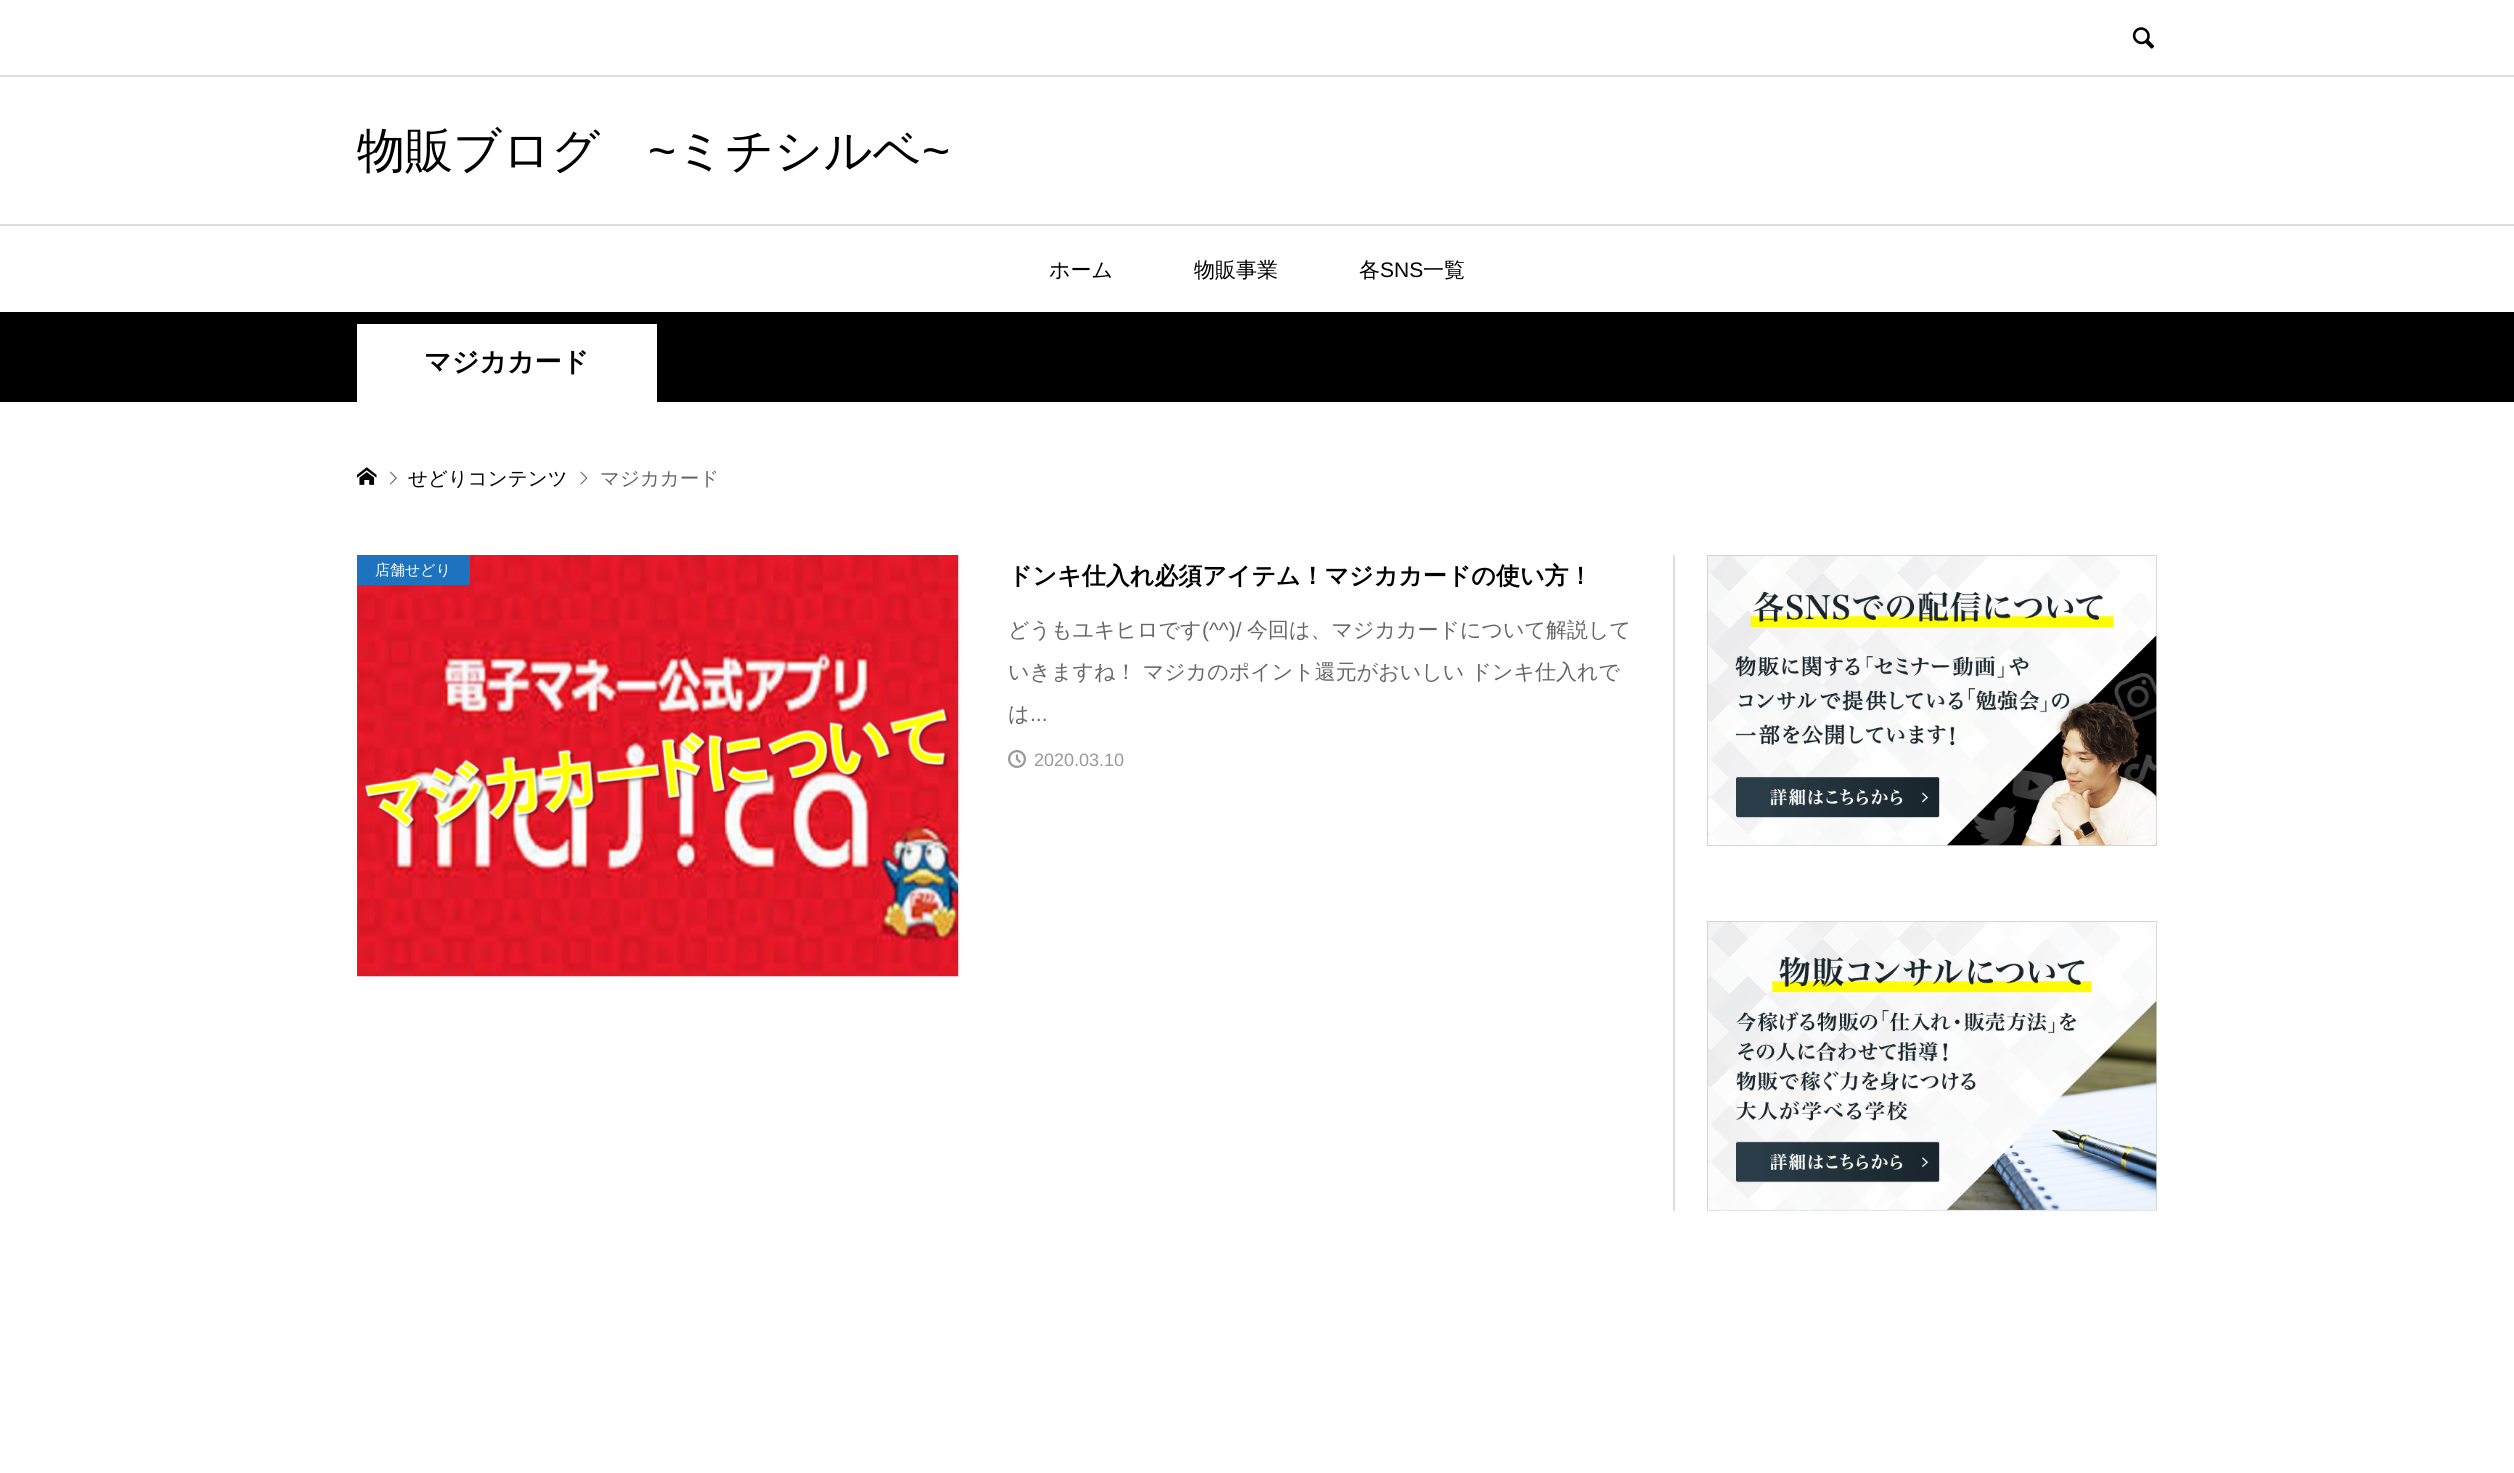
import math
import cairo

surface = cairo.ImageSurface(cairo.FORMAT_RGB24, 2514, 1473)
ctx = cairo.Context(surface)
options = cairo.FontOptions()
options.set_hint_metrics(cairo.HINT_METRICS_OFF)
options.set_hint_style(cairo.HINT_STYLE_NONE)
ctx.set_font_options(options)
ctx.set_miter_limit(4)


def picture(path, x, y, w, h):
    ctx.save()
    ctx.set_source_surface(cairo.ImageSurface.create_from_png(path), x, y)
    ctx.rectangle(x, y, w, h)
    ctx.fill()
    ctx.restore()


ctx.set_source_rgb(1, 1, 1)
ctx.paint()
ctx.set_source_rgb(0.867, 0.867, 0.867)
ctx.rectangle(0, 75, 2514, 2)
ctx.fill()
picture("img1.png", 2132, 27, 23, 22)
ctx.select_font_face("WenQuanYi Zen Hei Medium")
ctx.set_font_size(48)
ctx.set_source_rgb(0, 0, 0)
ctx.move_to(357, 167)
ctx.show_text("物販ブログ")
ctx.select_font_face("Liberation Sans")
ctx.move_to(648, 167)
ctx.show_text("~")
ctx.select_font_face("WenQuanYi Zen Hei Medium")
ctx.move_to(676, 167)
ctx.show_text("ミチシルベ")
ctx.select_font_face("Liberation Sans")
ctx.move_to(922, 167)
ctx.show_text("~")
ctx.set_source_rgb(0.867, 0.867, 0.867)
ctx.rectangle(0, 224, 2514, 2)
ctx.fill()
ctx.select_font_face("WenQuanYi Zen Hei Medium")
ctx.set_font_size(21)
ctx.set_source_rgb(0, 0, 0)
ctx.move_to(1049, 277)
ctx.show_text("ホーム")
ctx.move_to(1194, 277)
ctx.show_text("物販事業")
ctx.move_to(1359, 277)
ctx.show_text("各")
ctx.select_font_face("Liberation Sans")
ctx.move_to(1380, 277)
ctx.show_text("SNS")
ctx.select_font_face("WenQuanYi Zen Hei Medium")
ctx.move_to(1423, 277)
ctx.show_text("一覧")
ctx.rectangle(0, 312, 2514, 90)
ctx.fill()
ctx.set_source_rgb(1, 1, 1)
ctx.rectangle(357, 324, 300, 78)
ctx.fill()
ctx.select_font_face("WenQuanYi Zen Hei", cairo.FONT_SLANT_NORMAL, cairo.FONT_WEIGHT_BOLD)
ctx.set_font_size(27)
ctx.set_source_rgb(0, 0, 0)
ctx.move_to(424, 371)
ctx.show_text("マジカカード")
picture("img2.png", 357, 467, 20, 18)
picture("img3.png", 390, 471, 7, 14)
ctx.select_font_face("WenQuanYi Zen Hei Medium")
ctx.set_font_size(19.5)
ctx.move_to(408, 485)
ctx.show_text("せどりコンテンツ")
picture("img4.png", 580, 471, 8, 14)
ctx.set_source_rgb(0.4, 0.4, 0.4)
ctx.move_to(600, 485)
ctx.show_text("マジカカード")
picture("img5.png", 357, 555, 602, 422)
ctx.set_source_rgb(0.118, 0.451, 0.745)
ctx.rectangle(357, 555, 113, 30)
ctx.fill()
ctx.set_font_size(15)
ctx.set_source_rgb(1, 1, 1)
ctx.move_to(375, 575)
ctx.show_text("店舗せどり")
ctx.select_font_face("WenQuanYi Zen Hei", cairo.FONT_SLANT_NORMAL, cairo.FONT_WEIGHT_BOLD)
ctx.set_font_size(24)
ctx.set_source_rgb(0, 0, 0)
ctx.move_to(1008, 584)
ctx.show_text("ドンキ仕入れ必須アイテム！マジカカードの使い方！")
ctx.select_font_face("WenQuanYi Zen Hei Medium")
ctx.set_font_size(21)
ctx.set_source_rgb(0.4, 0.4, 0.4)
ctx.move_to(1008, 637)
ctx.show_text("どうもユキヒロです")
ctx.select_font_face("Liberation Sans")
ctx.move_to(1202, 637)
ctx.show_text("(^^)/")
ctx.select_font_face("WenQuanYi Zen Hei Medium")
ctx.move_to(1247, 637)
ctx.show_text("今回は、マジカカードについて解説して")
ctx.move_to(1008, 679)
ctx.show_text("いきますね！ マジカのポイント還元がおいしい ドンキ仕入れで")
ctx.move_to(1008, 721)
ctx.show_text("は")
ctx.select_font_face("Liberation Sans")
ctx.move_to(1030, 721)
ctx.show_text("...")
picture("img6.png", 1008, 750, 18, 18)
ctx.set_font_size(18)
ctx.set_source_rgb(0.6, 0.6, 0.6)
ctx.move_to(1034, 766)
ctx.show_text("2020.03.10")
ctx.set_source_rgb(0.867, 0.867, 0.867)
ctx.rectangle(1673, 555, 2, 656)
ctx.fill()
picture("img7.png", 1707, 555, 450, 291)
picture("img8.png", 1707, 921, 450, 290)
surface.write_to_png("page.png")
